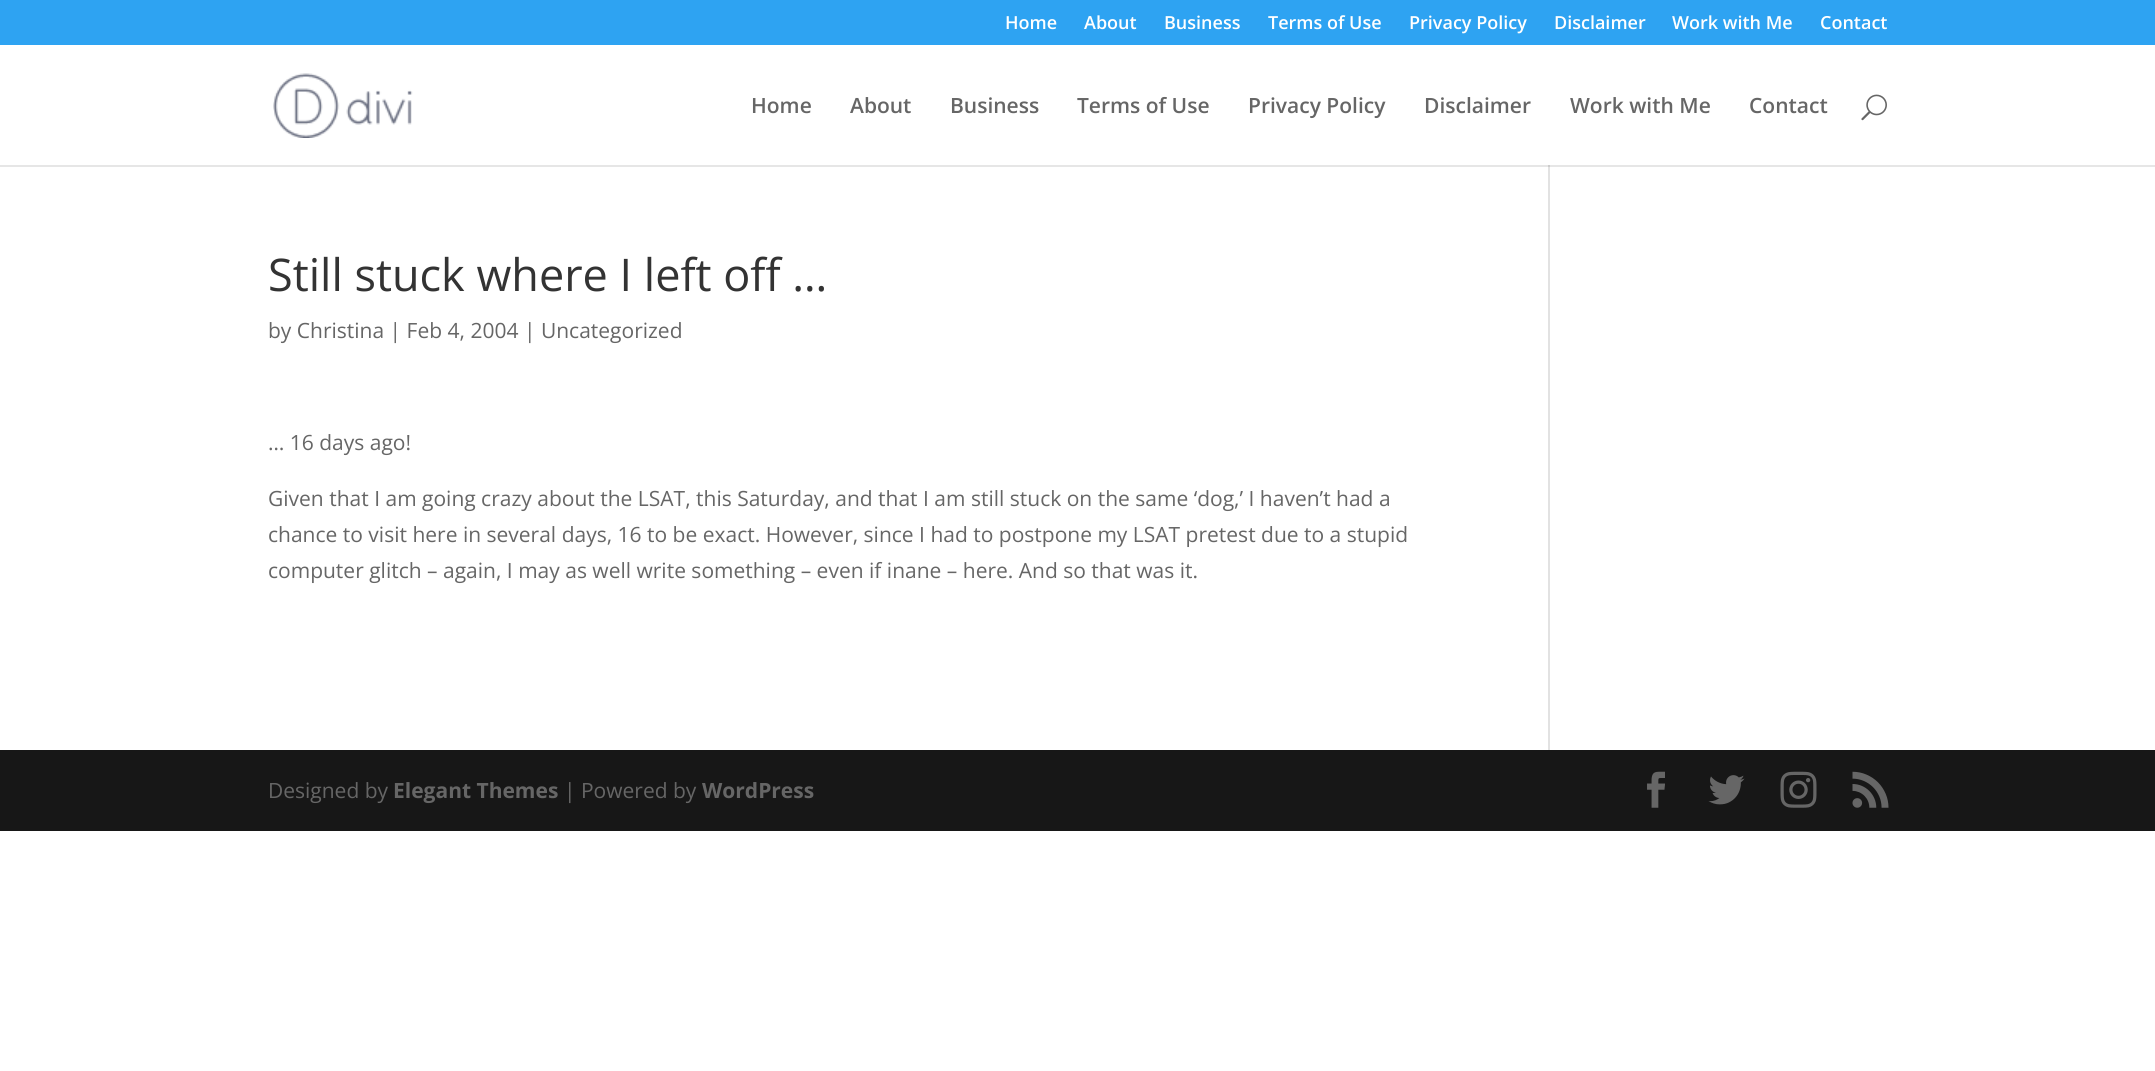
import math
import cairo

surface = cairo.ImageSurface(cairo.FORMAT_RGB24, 2155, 1071)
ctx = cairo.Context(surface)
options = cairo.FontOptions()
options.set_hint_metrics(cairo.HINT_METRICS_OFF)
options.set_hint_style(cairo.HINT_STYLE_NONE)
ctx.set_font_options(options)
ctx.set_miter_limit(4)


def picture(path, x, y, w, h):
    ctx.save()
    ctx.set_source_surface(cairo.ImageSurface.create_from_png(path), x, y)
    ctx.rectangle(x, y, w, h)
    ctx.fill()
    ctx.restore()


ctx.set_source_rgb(1, 1, 1)
ctx.paint()
ctx.set_source_rgb(0.18, 0.639, 0.949)
ctx.rectangle(0, 0, 2155, 45)
ctx.fill()
ctx.select_font_face("Open Sans SemiBold")
ctx.set_font_size(18)
ctx.set_source_rgb(1, 1, 1)
ctx.move_to(1005, 29)
ctx.show_text("Home")
ctx.move_to(1084, 29)
ctx.show_text("About")
ctx.move_to(1164, 29)
ctx.show_text("Business")
ctx.move_to(1268, 29)
ctx.show_text("Terms of Use")
ctx.move_to(1409, 29)
ctx.show_text("Privacy Policy")
ctx.move_to(1554, 29)
ctx.show_text("Disclaimer")
ctx.move_to(1672, 29)
ctx.show_text("Work with Me")
ctx.move_to(1820, 29)
ctx.show_text("Contact")
ctx.set_source_rgb(0.886, 0.886, 0.886)
ctx.rectangle(1548, 165, 2, 585)
ctx.fill()
ctx.set_source_rgba(0, 0, 0, 0.1)
ctx.new_path()
ctx.move_to(0, 165)
ctx.line_to(0, 167)
ctx.line_to(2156, 167)
ctx.line_to(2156, 47)
ctx.line_to(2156, 165)
ctx.close_path()
ctx.fill()
picture("img1.png", 273, 73, 140, 65)
ctx.set_font_size(21)
ctx.set_source_rgb(0.4, 0.4, 0.4)
ctx.move_to(751, 113)
ctx.show_text("Home")
ctx.move_to(850, 113)
ctx.show_text("About")
ctx.move_to(950, 113)
ctx.show_text("Business")
ctx.move_to(1077, 113)
ctx.show_text("Terms of Use")
ctx.move_to(1248, 113)
ctx.show_text("Privacy Policy")
ctx.move_to(1424, 113)
ctx.show_text("Disclaimer")
ctx.move_to(1570, 113)
ctx.show_text("Work with Me")
ctx.move_to(1749, 113)
ctx.show_text("Contact")
picture("img2.png", 1861, 94, 26, 27)
ctx.select_font_face("Open Sans")
ctx.set_font_size(45)
ctx.set_source_rgb(0.2, 0.2, 0.2)
ctx.move_to(268, 291)
ctx.show_text("Still stuck where I left off …")
ctx.set_font_size(21)
ctx.set_source_rgb(0.4, 0.4, 0.4)
ctx.move_to(268, 338)
ctx.show_text("by Christina | Feb 4, 2004 | Uncategorized")
ctx.move_to(268, 450)
ctx.show_text("… 16 days ago!")
ctx.move_to(268, 506)
ctx.show_text("Given that I am going crazy about the LSAT, this Saturday, and that I am still stuck on the same ‘dog,’ I haven’t had a")
ctx.move_to(268, 542)
ctx.show_text("chance to visit here in several days, 16 to be exact. However, since I had to postpone my LSAT pretest due to a stupid")
ctx.move_to(268, 578)
ctx.show_text("computer glitch – again, I may as well write something – even if inane – here. And so that was it.")
ctx.set_source_rgb(0.09, 0.09, 0.09)
ctx.rectangle(0, 750, 2155, 81)
ctx.fill()
ctx.set_source_rgb(0.4, 0.4, 0.4)
ctx.move_to(268, 798)
ctx.show_text("Designed by")
ctx.select_font_face("Open Sans", cairo.FONT_SLANT_NORMAL, cairo.FONT_WEIGHT_BOLD)
ctx.move_to(393, 798)
ctx.show_text("Elegant Themes")
ctx.select_font_face("Open Sans")
ctx.move_to(564, 798)
ctx.show_text("| Powered by")
ctx.select_font_face("Open Sans", cairo.FONT_SLANT_NORMAL, cairo.FONT_WEIGHT_BOLD)
ctx.move_to(702, 798)
ctx.show_text("WordPress")
picture("img3.png", 1647, 771, 18, 37)
picture("img4.png", 1708, 775, 37, 30)
picture("img5.png", 1780, 771, 37, 37)
picture("img6.png", 1852, 771, 37, 37)
surface.write_to_png("page.png")
